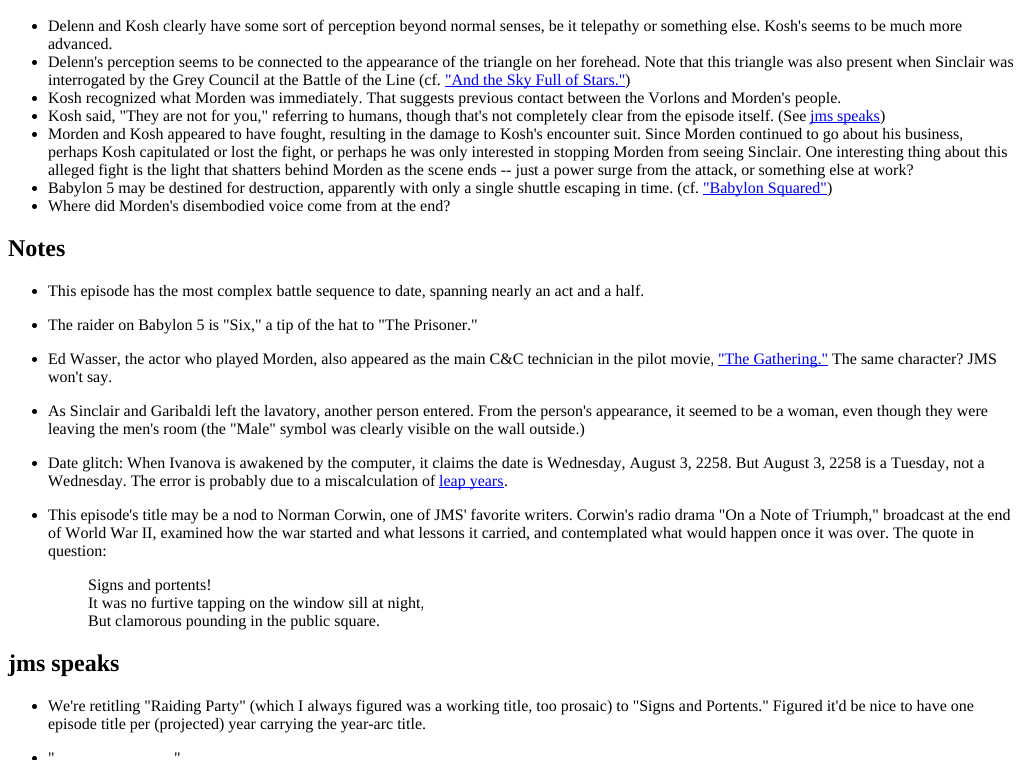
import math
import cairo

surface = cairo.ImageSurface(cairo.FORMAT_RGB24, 1023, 760)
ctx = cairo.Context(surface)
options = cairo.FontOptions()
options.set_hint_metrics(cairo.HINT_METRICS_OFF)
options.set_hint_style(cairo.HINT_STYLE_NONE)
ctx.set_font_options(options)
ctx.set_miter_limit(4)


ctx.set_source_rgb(1, 1, 1)
ctx.paint()
ctx.set_source_rgb(0, 0, 0)
ctx.arc(34.5, 26.5, 2.5, 0, 2 * math.pi)
ctx.fill()
ctx.select_font_face("Liberation Serif")
ctx.set_font_size(16)
ctx.move_to(48, 31)
ctx.show_text("Delenn and Kosh clearly have some sort of perception beyond normal senses, be it telepathy or something else. Kosh's seems to be much more")
ctx.move_to(48, 49)
ctx.show_text("advanced.")
ctx.new_path()
ctx.arc(34.5, 62.5, 2.5, 0, 2 * math.pi)
ctx.fill()
ctx.move_to(48, 67)
ctx.show_text("Delenn's perception seems to be connected to the appearance of the triangle on her forehead. Note that this triangle was also present when Sinclair was")
ctx.move_to(48, 85)
ctx.show_text("interrogated by the Grey Council at the Battle of the Line (cf.")
ctx.set_source_rgb(0, 0, 0.933)
ctx.rectangle(445, 86, 180, 1)
ctx.fill()
ctx.move_to(445, 85)
ctx.show_text("\"And the Sky Full of Stars.\"")
ctx.set_source_rgb(0, 0, 0)
ctx.move_to(625, 85)
ctx.show_text(")")
ctx.new_path()
ctx.arc(34.5, 98.5, 2.5, 0, 2 * math.pi)
ctx.fill()
ctx.move_to(48, 103)
ctx.show_text("Kosh recognized what Morden was immediately. That suggests previous contact between the Vorlons and Morden's people.")
ctx.new_path()
ctx.arc(34.5, 116.5, 2.5, 0, 2 * math.pi)
ctx.fill()
ctx.move_to(48, 121)
ctx.show_text("Kosh said, \"They are not for you,\" referring to humans, though that's not completely clear from the episode itself. (See")
ctx.set_source_rgb(0, 0, 0.933)
ctx.rectangle(810, 122, 70, 1)
ctx.fill()
ctx.move_to(810, 121)
ctx.show_text("jms speaks")
ctx.set_source_rgb(0, 0, 0)
ctx.move_to(880, 121)
ctx.show_text(")")
ctx.new_path()
ctx.arc(34.5, 134.5, 2.5, 0, 2 * math.pi)
ctx.fill()
ctx.move_to(48, 139)
ctx.show_text("Morden and Kosh appeared to have fought, resulting in the damage to Kosh's encounter suit. Since Morden continued to go about his business,")
ctx.move_to(48, 157)
ctx.show_text("perhaps Kosh capitulated or lost the fight, or perhaps he was only interested in stopping Morden from seeing Sinclair. One interesting thing about this")
ctx.move_to(48, 175)
ctx.show_text("alleged fight is the light that shatters behind Morden as the scene ends -- just a power surge from the attack, or something else at work?")
ctx.new_path()
ctx.arc(34.5, 188.5, 2.5, 0, 2 * math.pi)
ctx.fill()
ctx.move_to(48, 193)
ctx.show_text("Babylon 5 may be destined for destruction, apparently with only a single shuttle escaping in time. (cf.")
ctx.set_source_rgb(0, 0, 0.933)
ctx.rectangle(703, 194, 124, 1)
ctx.fill()
ctx.move_to(703, 193)
ctx.show_text("\"Babylon Squared\"")
ctx.set_source_rgb(0, 0, 0)
ctx.move_to(827, 193)
ctx.show_text(")")
ctx.new_path()
ctx.arc(34.5, 206.5, 2.5, 0, 2 * math.pi)
ctx.fill()
ctx.move_to(48, 211)
ctx.show_text("Where did Morden's disembodied voice come from at the end?")
ctx.select_font_face("Liberation Serif", cairo.FONT_SLANT_NORMAL, cairo.FONT_WEIGHT_BOLD)
ctx.set_font_size(24)
ctx.move_to(8, 256)
ctx.show_text("Notes")
ctx.new_path()
ctx.arc(34.5, 291.5, 2.5, 0, 2 * math.pi)
ctx.fill()
ctx.select_font_face("Liberation Serif")
ctx.set_font_size(16)
ctx.move_to(48, 296)
ctx.show_text("This episode has the most complex battle sequence to date, spanning nearly an act and a half.")
ctx.new_path()
ctx.arc(34.5, 325.5, 2.5, 0, 2 * math.pi)
ctx.fill()
ctx.move_to(48, 330)
ctx.show_text("The raider on Babylon 5 is \"Six,\" a tip of the hat to \"The Prisoner.\"")
ctx.new_path()
ctx.arc(34.5, 359.5, 2.5, 0, 2 * math.pi)
ctx.fill()
ctx.move_to(48, 364)
ctx.show_text("Ed Wasser, the actor who played Morden, also appeared as the main C&C technician in the pilot movie,")
ctx.set_source_rgb(0, 0, 0.933)
ctx.rectangle(718, 365, 110, 1)
ctx.fill()
ctx.move_to(718, 364)
ctx.show_text("\"The Gathering.\"")
ctx.set_source_rgb(0, 0, 0)
ctx.move_to(832, 364)
ctx.show_text("The same character? JMS")
ctx.move_to(48, 382)
ctx.show_text("won't say.")
ctx.new_path()
ctx.arc(34.5, 411.5, 2.5, 0, 2 * math.pi)
ctx.fill()
ctx.move_to(48, 416)
ctx.show_text("As Sinclair and Garibaldi left the lavatory, another person entered. From the person's appearance, it seemed to be a woman, even though they were")
ctx.move_to(48, 434)
ctx.show_text("leaving the men's room (the \"Male\" symbol was clearly visible on the wall outside.)")
ctx.new_path()
ctx.arc(34.5, 463.5, 2.5, 0, 2 * math.pi)
ctx.fill()
ctx.move_to(48, 468)
ctx.show_text("Date glitch: When Ivanova is awakened by the computer, it claims the date is Wednesday, August 3, 2258. But August 3, 2258 is a Tuesday, not a")
ctx.move_to(48, 486)
ctx.show_text("Wednesday. The error is probably due to a miscalculation of")
ctx.set_source_rgb(0, 0, 0.933)
ctx.rectangle(439, 487, 65, 1)
ctx.fill()
ctx.move_to(439, 486)
ctx.show_text("leap years")
ctx.set_source_rgb(0, 0, 0)
ctx.move_to(504, 486)
ctx.show_text(".")
ctx.new_path()
ctx.arc(34.5, 515.5, 2.5, 0, 2 * math.pi)
ctx.fill()
ctx.move_to(48, 520)
ctx.show_text("This episode's title may be a nod to Norman Corwin, one of JMS' favorite writers. Corwin's radio drama \"On a Note of Triumph,\" broadcast at the end")
ctx.move_to(48, 538)
ctx.show_text("of World War II, examined how the war started and what lessons it carried, and contemplated what would happen once it was over. The quote in")
ctx.move_to(48, 556)
ctx.show_text("question:")
ctx.move_to(88, 590)
ctx.show_text("Signs and portents!")
ctx.move_to(88, 608)
ctx.show_text("It was no furtive tapping on the window sill at night,")
ctx.move_to(88, 626)
ctx.show_text("But clamorous pounding in the public square.")
ctx.select_font_face("Liberation Serif", cairo.FONT_SLANT_NORMAL, cairo.FONT_WEIGHT_BOLD)
ctx.set_font_size(24)
ctx.move_to(8, 671)
ctx.show_text("jms speaks")
ctx.new_path()
ctx.arc(34.5, 706.5, 2.5, 0, 2 * math.pi)
ctx.fill()
ctx.select_font_face("Liberation Serif")
ctx.set_font_size(16)
ctx.move_to(48, 711)
ctx.show_text("We're retitling \"Raiding Party\" (which I always figured was a working title, too prosaic) to \"Signs and Portents.\" Figured it'd be nice to have one")
ctx.move_to(48, 729)
ctx.show_text("episode title per (projected) year carrying the year-arc title.")
ctx.move_to(48, 763)
ctx.show_text("\"")
ctx.move_to(174, 763)
ctx.show_text("\"")
ctx.new_path()
ctx.arc(34.5, 758.5, 2.5, 0, 2 * math.pi)
ctx.fill()
surface.write_to_png("page.png")
